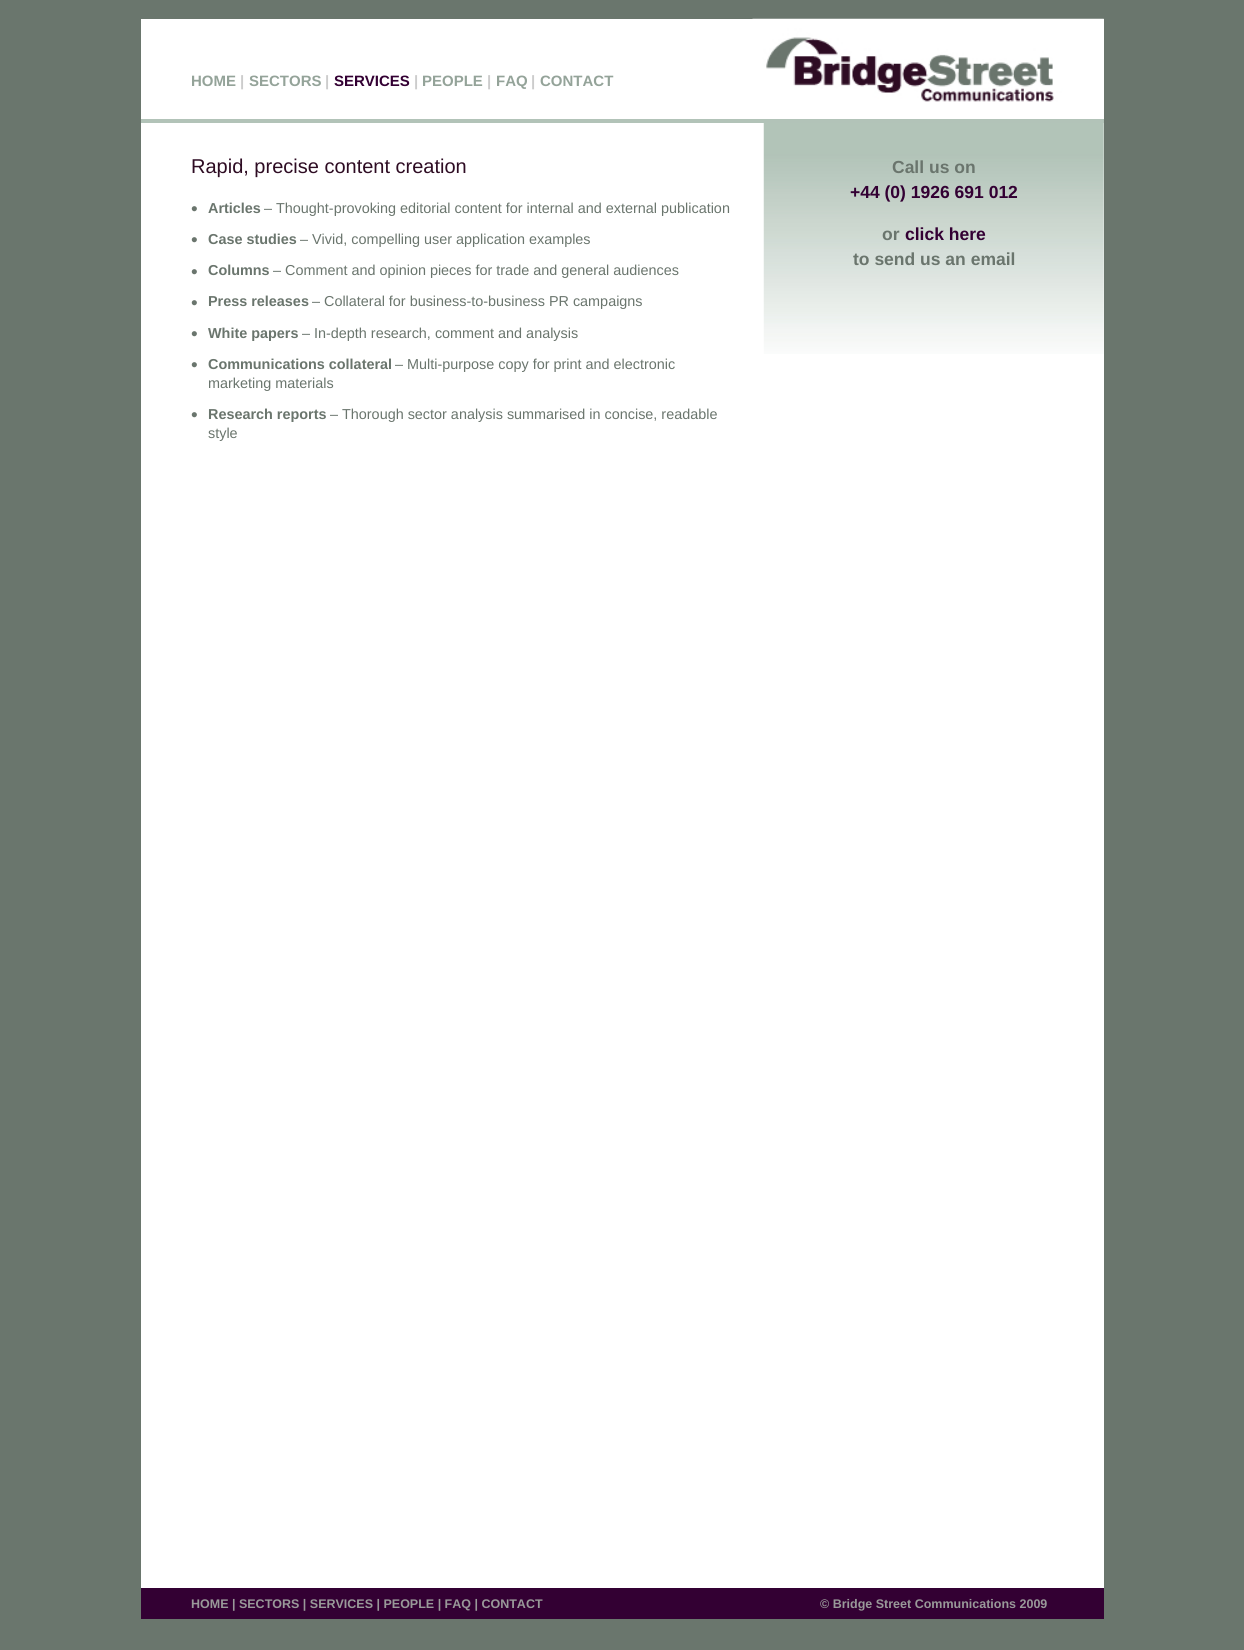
import math
import cairo

surface = cairo.ImageSurface(cairo.FORMAT_RGB24, 1244, 1650)
ctx = cairo.Context(surface)
options = cairo.FontOptions()
options.set_hint_metrics(cairo.HINT_METRICS_OFF)
options.set_hint_style(cairo.HINT_STYLE_NONE)
ctx.set_font_options(options)
ctx.set_miter_limit(4)


def picture(path, x, y, w, h):
    ctx.save()
    ctx.set_source_surface(cairo.ImageSurface.create_from_png(path), x, y)
    ctx.rectangle(x, y, w, h)
    ctx.fill()
    ctx.restore()


ctx.set_source_rgb(0.416, 0.463, 0.427)
ctx.paint()
ctx.set_source_rgb(1, 1, 1)
ctx.rectangle(141, 19, 963, 1569)
ctx.fill()
ctx.select_font_face("Liberation Sans", cairo.FONT_SLANT_NORMAL, cairo.FONT_WEIGHT_BOLD)
ctx.set_font_size(15)
ctx.set_source_rgb(0.58, 0.639, 0.6)
ctx.move_to(191, 86)
ctx.show_text("HOME")
ctx.set_source_rgb(0.8, 0.8, 0.8)
ctx.move_to(240, 86)
ctx.show_text("|")
ctx.set_source_rgb(0.58, 0.639, 0.6)
ctx.move_to(249, 86)
ctx.show_text("SECTORS")
ctx.set_source_rgb(0.8, 0.8, 0.8)
ctx.move_to(325, 86)
ctx.show_text("|")
ctx.set_source_rgb(0.2, 0, 0.2)
ctx.move_to(334, 86)
ctx.show_text("SERVICES")
ctx.set_source_rgb(0.8, 0.8, 0.8)
ctx.move_to(414, 86)
ctx.show_text("|")
ctx.set_source_rgb(0.58, 0.639, 0.6)
ctx.move_to(422, 86)
ctx.show_text("PEOPLE")
ctx.set_source_rgb(0.8, 0.8, 0.8)
ctx.move_to(487, 86)
ctx.show_text("|")
ctx.set_source_rgb(0.58, 0.639, 0.6)
ctx.move_to(496, 86)
ctx.show_text("FAQ")
ctx.set_source_rgb(0.8, 0.8, 0.8)
ctx.move_to(531, 86)
ctx.show_text("|")
ctx.set_source_rgb(0.58, 0.639, 0.6)
ctx.move_to(540, 86)
ctx.show_text("CONTACT")
picture("img1.png", 752, 18, 352, 84)
ctx.set_source_rgb(0.698, 0.765, 0.722)
ctx.rectangle(141, 119, 963, 4)
ctx.fill()
ctx.select_font_face("Liberation Sans")
ctx.set_font_size(20)
ctx.set_source_rgb(0.18, 0.047, 0.137)
ctx.move_to(191, 173)
ctx.show_text("Rapid, precise content creation")
ctx.set_font_size(19)
ctx.set_source_rgb(0.416, 0.459, 0.427)
ctx.move_to(191, 215)
ctx.show_text("•")
ctx.select_font_face("Liberation Sans", cairo.FONT_SLANT_NORMAL, cairo.FONT_WEIGHT_BOLD)
ctx.set_font_size(14.4)
ctx.move_to(208, 213)
ctx.show_text("Articles")
ctx.select_font_face("Liberation Sans")
ctx.move_to(264, 213)
ctx.show_text("– Thought-provoking editorial content for internal and external publication")
ctx.set_font_size(19)
ctx.move_to(191, 246)
ctx.show_text("•")
ctx.select_font_face("Liberation Sans", cairo.FONT_SLANT_NORMAL, cairo.FONT_WEIGHT_BOLD)
ctx.set_font_size(14.4)
ctx.move_to(208, 244)
ctx.show_text("Case studies")
ctx.select_font_face("Liberation Sans")
ctx.move_to(300, 244)
ctx.show_text("– Vivid, compelling user application examples")
ctx.set_font_size(19)
ctx.move_to(191, 278)
ctx.show_text("•")
ctx.select_font_face("Liberation Sans", cairo.FONT_SLANT_NORMAL, cairo.FONT_WEIGHT_BOLD)
ctx.set_font_size(14.4)
ctx.move_to(208, 275)
ctx.show_text("Columns")
ctx.select_font_face("Liberation Sans")
ctx.move_to(273, 275)
ctx.show_text("– Comment and opinion pieces for trade and general audiences")
ctx.set_font_size(19)
ctx.move_to(191, 309)
ctx.show_text("•")
ctx.select_font_face("Liberation Sans", cairo.FONT_SLANT_NORMAL, cairo.FONT_WEIGHT_BOLD)
ctx.set_font_size(14.4)
ctx.move_to(208, 306)
ctx.show_text("Press releases")
ctx.select_font_face("Liberation Sans")
ctx.move_to(312, 306)
ctx.show_text("– Collateral for business-to-business PR campaigns")
ctx.set_font_size(19)
ctx.move_to(191, 340)
ctx.show_text("•")
ctx.select_font_face("Liberation Sans", cairo.FONT_SLANT_NORMAL, cairo.FONT_WEIGHT_BOLD)
ctx.set_font_size(14.4)
ctx.move_to(208, 338)
ctx.show_text("White papers")
ctx.select_font_face("Liberation Sans")
ctx.move_to(302, 338)
ctx.show_text("– In-depth research, comment and analysis")
ctx.set_font_size(19)
ctx.move_to(191, 371)
ctx.show_text("•")
ctx.select_font_face("Liberation Sans", cairo.FONT_SLANT_NORMAL, cairo.FONT_WEIGHT_BOLD)
ctx.set_font_size(14.4)
ctx.move_to(208, 369)
ctx.show_text("Communications collateral")
ctx.select_font_face("Liberation Sans")
ctx.move_to(395, 369)
ctx.show_text("– Multi-purpose copy for print and electronic")
ctx.move_to(208, 388)
ctx.show_text("marketing materials")
ctx.set_font_size(19)
ctx.move_to(191, 421)
ctx.show_text("•")
ctx.select_font_face("Liberation Sans", cairo.FONT_SLANT_NORMAL, cairo.FONT_WEIGHT_BOLD)
ctx.set_font_size(14.4)
ctx.move_to(208, 419)
ctx.show_text("Research reports")
ctx.select_font_face("Liberation Sans")
ctx.move_to(330, 419)
ctx.show_text("– Thorough sector analysis summarised in concise, readable")
ctx.move_to(208, 438)
ctx.show_text("style")
picture("img2.png", 763, 123, 341, 231)
ctx.select_font_face("Liberation Sans", cairo.FONT_SLANT_NORMAL, cairo.FONT_WEIGHT_BOLD)
ctx.set_font_size(17.5)
ctx.move_to(892, 173)
ctx.show_text("Call us on")
ctx.set_source_rgb(0.2, 0, 0.2)
ctx.move_to(850, 198)
ctx.show_text("+44 (0) 1926 691 012")
ctx.set_source_rgb(0.416, 0.459, 0.427)
ctx.move_to(882, 240)
ctx.show_text("or")
ctx.set_source_rgb(0.2, 0, 0.2)
ctx.move_to(905, 240)
ctx.show_text("click here")
ctx.set_source_rgb(0.416, 0.459, 0.427)
ctx.move_to(853, 265)
ctx.show_text("to send us an email")
ctx.set_source_rgb(0.2, 0, 0.2)
ctx.rectangle(141, 1588, 963, 31)
ctx.fill()
ctx.set_font_size(12.5)
ctx.set_source_rgb(0.6, 0.6, 0.6)
ctx.move_to(191, 1608)
ctx.show_text("HOME | SECTORS | SERVICES | PEOPLE | FAQ | CONTACT")
ctx.move_to(820, 1608)
ctx.show_text("© Bridge Street Communications 2009")
surface.write_to_png("page.png")
